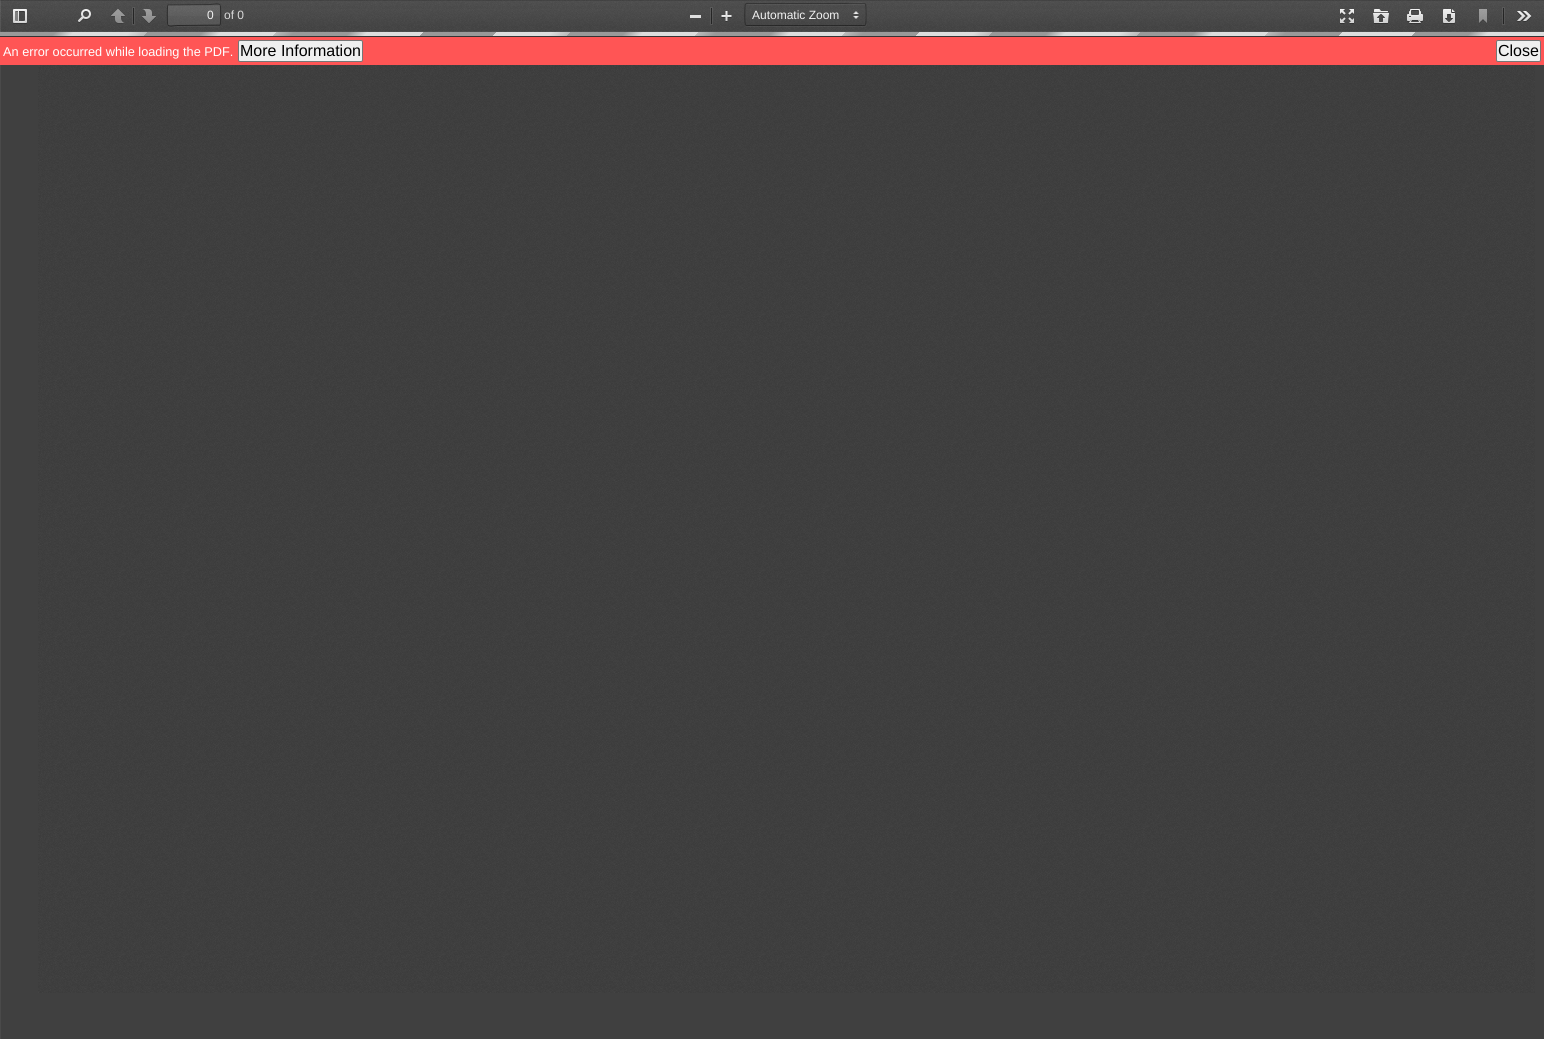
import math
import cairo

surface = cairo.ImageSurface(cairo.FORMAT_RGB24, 1544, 1039)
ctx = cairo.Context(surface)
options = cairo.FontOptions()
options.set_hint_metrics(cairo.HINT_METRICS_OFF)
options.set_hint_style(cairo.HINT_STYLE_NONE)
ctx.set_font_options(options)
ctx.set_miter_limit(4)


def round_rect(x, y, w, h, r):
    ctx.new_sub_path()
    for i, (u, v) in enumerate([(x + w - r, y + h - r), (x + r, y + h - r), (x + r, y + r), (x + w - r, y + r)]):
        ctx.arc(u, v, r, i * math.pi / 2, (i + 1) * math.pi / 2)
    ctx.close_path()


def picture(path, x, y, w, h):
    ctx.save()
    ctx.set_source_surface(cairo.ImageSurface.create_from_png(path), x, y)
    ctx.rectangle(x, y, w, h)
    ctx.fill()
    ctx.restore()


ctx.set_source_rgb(0.251, 0.251, 0.251)
ctx.paint()
picture("img1.png", 38, 17, 1497, 976)
picture("img2.png", 0, 0, 1544, 32)
ctx.set_source_rgba(1, 1, 1, 0.05)
ctx.rectangle(0, 31, 1544, 1)
ctx.fill()
ctx.set_source_rgba(0, 0, 0, 0.15)
ctx.rectangle(0, 0, 1544, 1)
ctx.fill()
ctx.set_source_rgba(1, 1, 1, 0.08)
ctx.rectangle(0, 0, 1, 32)
ctx.fill()
picture("img3.png", 13, 9, 14, 15)
picture("img4.png", 78, 9, 13, 14)
picture("img5.png", 111, 9, 14, 15)
ctx.rectangle(132.5, 7.5, 2, 17)
ctx.set_line_width(1)
ctx.stroke()
ctx.set_source_rgba(0, 0, 0, 0.5)
ctx.rectangle(133, 8, 1, 16)
ctx.fill()
picture("img6.png", 142, 9, 14, 15)
ctx.set_source_rgba(1, 1, 1, 0.05)
ctx.new_path()
ctx.move_to(167, 24)
ctx.curve_to(167, 29, 173, 27, 177, 27)
ctx.line_to(211, 27)
ctx.curve_to(215, 27, 221, 29, 221, 24)
ctx.line_to(220, 26)
ctx.line_to(168, 26)
ctx.close_path()
ctx.fill()
ctx.set_source_rgba(1, 1, 1, 0.09)
ctx.rectangle(168, 5, 52, 20)
ctx.fill()
gradient = cairo.LinearGradient(194, 5, 194, 25)
gradient.add_color_stop_rgba(0, 1, 1, 1, 0.05)
gradient.add_color_stop_rgba(1, 1, 1, 1, 0)
ctx.set_source(gradient)
ctx.rectangle(168, 5, 52, 11)
ctx.fill()
ctx.set_source_rgba(0, 0, 0, 0.05)
ctx.new_path()
ctx.move_to(169, 6)
ctx.line_to(219, 6)
ctx.curve_to(220, 6, 220, 6, 220, 7)
ctx.curve_to(220, 3, 215, 5, 211, 5)
ctx.line_to(177, 5)
ctx.curve_to(173, 5, 168, 3, 168, 7)
ctx.curve_to(168, 6, 168, 6, 169, 6)
ctx.close_path()
ctx.fill()
ctx.new_path()
ctx.move_to(168, 5)
ctx.line_to(210.5, 4.5)
ctx.curve_to(214, 4.5, 218, 2.5, 220, 5)
ctx.set_source_rgba(0, 0, 0, 0.32)
ctx.stroke()
ctx.new_path()
ctx.move_to(220, 5)
ctx.curve_to(221, 5.5, 221, 24.5, 220, 25)
ctx.set_source_rgba(0, 0, 0, 0.38)
ctx.stroke()
ctx.new_path()
ctx.move_to(220, 25)
ctx.line_to(177.5, 25.5)
ctx.curve_to(174, 25.5, 170, 27.5, 168, 25)
ctx.set_source_rgba(0, 0, 0, 0.42)
ctx.stroke()
ctx.new_path()
ctx.move_to(168, 25)
ctx.curve_to(167, 24.5, 167, 5.5, 168, 5)
ctx.set_source_rgba(0, 0, 0, 0.38)
ctx.stroke()
ctx.select_font_face("Liberation Sans")
ctx.set_font_size(12)
ctx.set_source_rgb(0.949, 0.949, 0.949)
ctx.move_to(207, 19)
ctx.show_text("0")
ctx.set_source_rgb(0.851, 0.851, 0.851)
ctx.move_to(224, 19)
ctx.show_text("of 0")
ctx.set_source_rgba(1, 1, 1, 0.82)
ctx.rectangle(690, 15, 11, 3)
ctx.fill()
ctx.rectangle(710.5, 7.5, 2, 17)
ctx.set_source_rgba(1, 1, 1, 0.08)
ctx.stroke()
ctx.set_source_rgba(0, 0, 0, 0.5)
ctx.rectangle(711, 8, 1, 16)
ctx.fill()
picture("img7.png", 721, 11, 11, 11)
ctx.set_source_rgba(1, 1, 1, 0.05)
ctx.new_path()
ctx.move_to(745, 25)
ctx.curve_to(745, 26, 746, 27, 747, 27)
ctx.line_to(865, 27)
ctx.curve_to(866, 27, 867, 26, 867, 25)
ctx.line_to(867, 6)
ctx.line_to(866, 5)
ctx.line_to(866, 18)
ctx.curve_to(866, 19, 868, 26, 864, 26)
ctx.line_to(746, 26)
ctx.close_path()
ctx.fill()
picture("img8.png", 853, 11, 6, 8)
ctx.new_path()
ctx.move_to(746, 5)
ctx.line_to(864, 5)
ctx.curve_to(865, 5, 866, 5, 866, 6)
ctx.curve_to(866, -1, 848, 4, 845, 4)
ctx.line_to(747, 4)
ctx.close_path()
ctx.fill()
ctx.new_path()
ctx.move_to(745.5, 4)
ctx.line_to(746.5, 3.5)
ctx.line_to(864.5, 3.5)
ctx.line_to(865.5, 4)
ctx.set_source_rgba(0, 0, 0, 0.32)
ctx.stroke()
ctx.new_path()
ctx.move_to(865.5, 4)
ctx.curve_to(866.5, 5, 866.5, 24, 865.5, 25)
ctx.set_source_rgba(0, 0, 0, 0.38)
ctx.stroke()
ctx.new_path()
ctx.move_to(865.5, 25)
ctx.line_to(864.5, 25.5)
ctx.line_to(746.5, 25.5)
ctx.line_to(745.5, 25)
ctx.set_source_rgba(0, 0, 0, 0.42)
ctx.stroke()
ctx.new_path()
ctx.move_to(745.5, 25)
ctx.curve_to(744.5, 24, 744.5, 5, 745.5, 4)
ctx.set_source_rgba(0, 0, 0, 0.38)
ctx.stroke()
ctx.set_source_rgb(0.949, 0.949, 0.949)
ctx.move_to(752, 19)
ctx.show_text("Automatic Zoom")
picture("img9.png", 1340, 9, 14, 15)
picture("img10.png", 1373, 9, 16, 15)
picture("img11.png", 1407, 9, 16, 15)
picture("img12.png", 1443, 9, 12, 15)
picture("img13.png", 1479, 9, 8, 15)
ctx.rectangle(1502.5, 7.5, 2, 17)
ctx.set_source_rgba(1, 1, 1, 0.08)
ctx.stroke()
ctx.set_source_rgba(0, 0, 0, 0.5)
ctx.rectangle(1503, 8, 1, 16)
ctx.fill()
picture("img14.png", 1517, 11, 15, 11)
ctx.set_source_rgb(0.2, 0.2, 0.2)
ctx.rectangle(0, 36, 1544, 1)
ctx.fill()
gradient = cairo.LinearGradient(422, -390, 1342, 529)
gradient.add_color_stop_rgba(0, 0.733, 0.733, 0.733, 1)
gradient.add_color_stop_rgba(0, 0.6, 0.6, 0.6, 1)
gradient.add_color_stop_rgba(0.03, 0.6, 0.6, 0.6, 1)
gradient.add_color_stop_rgba(0.04, 0.867, 0.867, 0.867, 1)
gradient.add_color_stop_rgba(0.07, 0.867, 0.867, 0.867, 1)
gradient.add_color_stop_rgba(0.08, 0.733, 0.733, 0.733, 1)
gradient.add_color_stop_rgba(0.08, 0.6, 0.6, 0.6, 1)
gradient.add_color_stop_rgba(0.11, 0.6, 0.6, 0.6, 1)
gradient.add_color_stop_rgba(0.12, 0.867, 0.867, 0.867, 1)
gradient.add_color_stop_rgba(0.15, 0.867, 0.867, 0.867, 1)
gradient.add_color_stop_rgba(0.15, 0.733, 0.733, 0.733, 1)
gradient.add_color_stop_rgba(0.16, 0.6, 0.6, 0.6, 1)
gradient.add_color_stop_rgba(0.19, 0.6, 0.6, 0.6, 1)
gradient.add_color_stop_rgba(0.2, 0.867, 0.867, 0.867, 1)
gradient.add_color_stop_rgba(0.23, 0.867, 0.867, 0.867, 1)
gradient.add_color_stop_rgba(0.23, 0.733, 0.733, 0.733, 1)
gradient.add_color_stop_rgba(0.23, 0.6, 0.6, 0.6, 1)
gradient.add_color_stop_rgba(0.27, 0.6, 0.6, 0.6, 1)
gradient.add_color_stop_rgba(0.27, 0.867, 0.867, 0.867, 1)
gradient.add_color_stop_rgba(0.3, 0.867, 0.867, 0.867, 1)
gradient.add_color_stop_rgba(0.31, 0.733, 0.733, 0.733, 1)
gradient.add_color_stop_rgba(0.31, 0.6, 0.6, 0.6, 1)
gradient.add_color_stop_rgba(0.34, 0.6, 0.6, 0.6, 1)
gradient.add_color_stop_rgba(0.35, 0.867, 0.867, 0.867, 1)
gradient.add_color_stop_rgba(0.38, 0.867, 0.867, 0.867, 1)
gradient.add_color_stop_rgba(0.38, 0.733, 0.733, 0.733, 1)
gradient.add_color_stop_rgba(0.39, 0.6, 0.6, 0.6, 1)
gradient.add_color_stop_rgba(0.42, 0.6, 0.6, 0.6, 1)
gradient.add_color_stop_rgba(0.43, 0.867, 0.867, 0.867, 1)
gradient.add_color_stop_rgba(0.46, 0.867, 0.867, 0.867, 1)
gradient.add_color_stop_rgba(0.46, 0.733, 0.733, 0.733, 1)
gradient.add_color_stop_rgba(0.46, 0.733, 0.733, 0.733, 1)
gradient.add_color_stop_rgba(0.47, 0.6, 0.6, 0.6, 1)
gradient.add_color_stop_rgba(0.5, 0.6, 0.6, 0.6, 1)
gradient.add_color_stop_rgba(0.5, 0.867, 0.867, 0.867, 1)
gradient.add_color_stop_rgba(0.53, 0.867, 0.867, 0.867, 1)
gradient.add_color_stop_rgba(0.54, 0.733, 0.733, 0.733, 1)
gradient.add_color_stop_rgba(0.54, 0.733, 0.733, 0.733, 1)
gradient.add_color_stop_rgba(0.54, 0.6, 0.6, 0.6, 1)
gradient.add_color_stop_rgba(0.57, 0.6, 0.6, 0.6, 1)
gradient.add_color_stop_rgba(0.58, 0.867, 0.867, 0.867, 1)
gradient.add_color_stop_rgba(0.61, 0.867, 0.867, 0.867, 1)
gradient.add_color_stop_rgba(0.62, 0.733, 0.733, 0.733, 1)
gradient.add_color_stop_rgba(0.62, 0.6, 0.6, 0.6, 1)
gradient.add_color_stop_rgba(0.65, 0.6, 0.6, 0.6, 1)
gradient.add_color_stop_rgba(0.66, 0.867, 0.867, 0.867, 1)
gradient.add_color_stop_rgba(0.69, 0.867, 0.867, 0.867, 1)
gradient.add_color_stop_rgba(0.69, 0.733, 0.733, 0.733, 1)
gradient.add_color_stop_rgba(0.7, 0.6, 0.6, 0.6, 1)
gradient.add_color_stop_rgba(0.73, 0.6, 0.6, 0.6, 1)
gradient.add_color_stop_rgba(0.73, 0.867, 0.867, 0.867, 1)
gradient.add_color_stop_rgba(0.77, 0.867, 0.867, 0.867, 1)
gradient.add_color_stop_rgba(0.77, 0.733, 0.733, 0.733, 1)
gradient.add_color_stop_rgba(0.77, 0.733, 0.733, 0.733, 1)
gradient.add_color_stop_rgba(0.77, 0.6, 0.6, 0.6, 1)
gradient.add_color_stop_rgba(0.8, 0.6, 0.6, 0.6, 1)
gradient.add_color_stop_rgba(0.81, 0.867, 0.867, 0.867, 1)
gradient.add_color_stop_rgba(0.84, 0.867, 0.867, 0.867, 1)
gradient.add_color_stop_rgba(0.85, 0.733, 0.733, 0.733, 1)
gradient.add_color_stop_rgba(0.85, 0.6, 0.6, 0.6, 1)
gradient.add_color_stop_rgba(0.88, 0.6, 0.6, 0.6, 1)
gradient.add_color_stop_rgba(0.89, 0.867, 0.867, 0.867, 1)
gradient.add_color_stop_rgba(0.92, 0.867, 0.867, 0.867, 1)
gradient.add_color_stop_rgba(0.92, 0.733, 0.733, 0.733, 1)
gradient.add_color_stop_rgba(0.93, 0.6, 0.6, 0.6, 1)
gradient.add_color_stop_rgba(0.96, 0.6, 0.6, 0.6, 1)
gradient.add_color_stop_rgba(0.97, 0.867, 0.867, 0.867, 1)
gradient.add_color_stop_rgba(1, 0.867, 0.867, 0.867, 1)
gradient.add_color_stop_rgba(1, 0.733, 0.733, 0.733, 1)
ctx.set_source(gradient)
ctx.rectangle(0, 32, 1544, 4)
ctx.fill()
ctx.set_source_rgb(1, 0.333, 0.333)
ctx.rectangle(0, 37, 1544, 28)
ctx.fill()
ctx.set_font_size(12.75)
ctx.set_source_rgb(1, 1, 1)
ctx.move_to(3, 56)
ctx.show_text("An error occurred while loading the PDF.")
ctx.set_source_rgb(0.937, 0.937, 0.937)
round_rect(238.5, 40.5, 124, 21, 1.5)
ctx.fill_preserve()
ctx.set_source_rgb(0.463, 0.463, 0.463)
ctx.stroke()
ctx.set_font_size(16)
ctx.set_source_rgb(0, 0, 0)
ctx.move_to(240, 56)
ctx.show_text("More Information")
ctx.set_source_rgb(0.937, 0.937, 0.937)
round_rect(1496.5, 40.5, 44, 21, 1.5)
ctx.fill_preserve()
ctx.set_source_rgb(0.463, 0.463, 0.463)
ctx.stroke()
ctx.set_source_rgb(0, 0, 0)
ctx.move_to(1498, 56)
ctx.show_text("Close")
ctx.set_source_rgb(0.29, 0.29, 0.29)
ctx.rectangle(0, 65, 1, 974)
ctx.fill()
surface.write_to_png("page.png")
